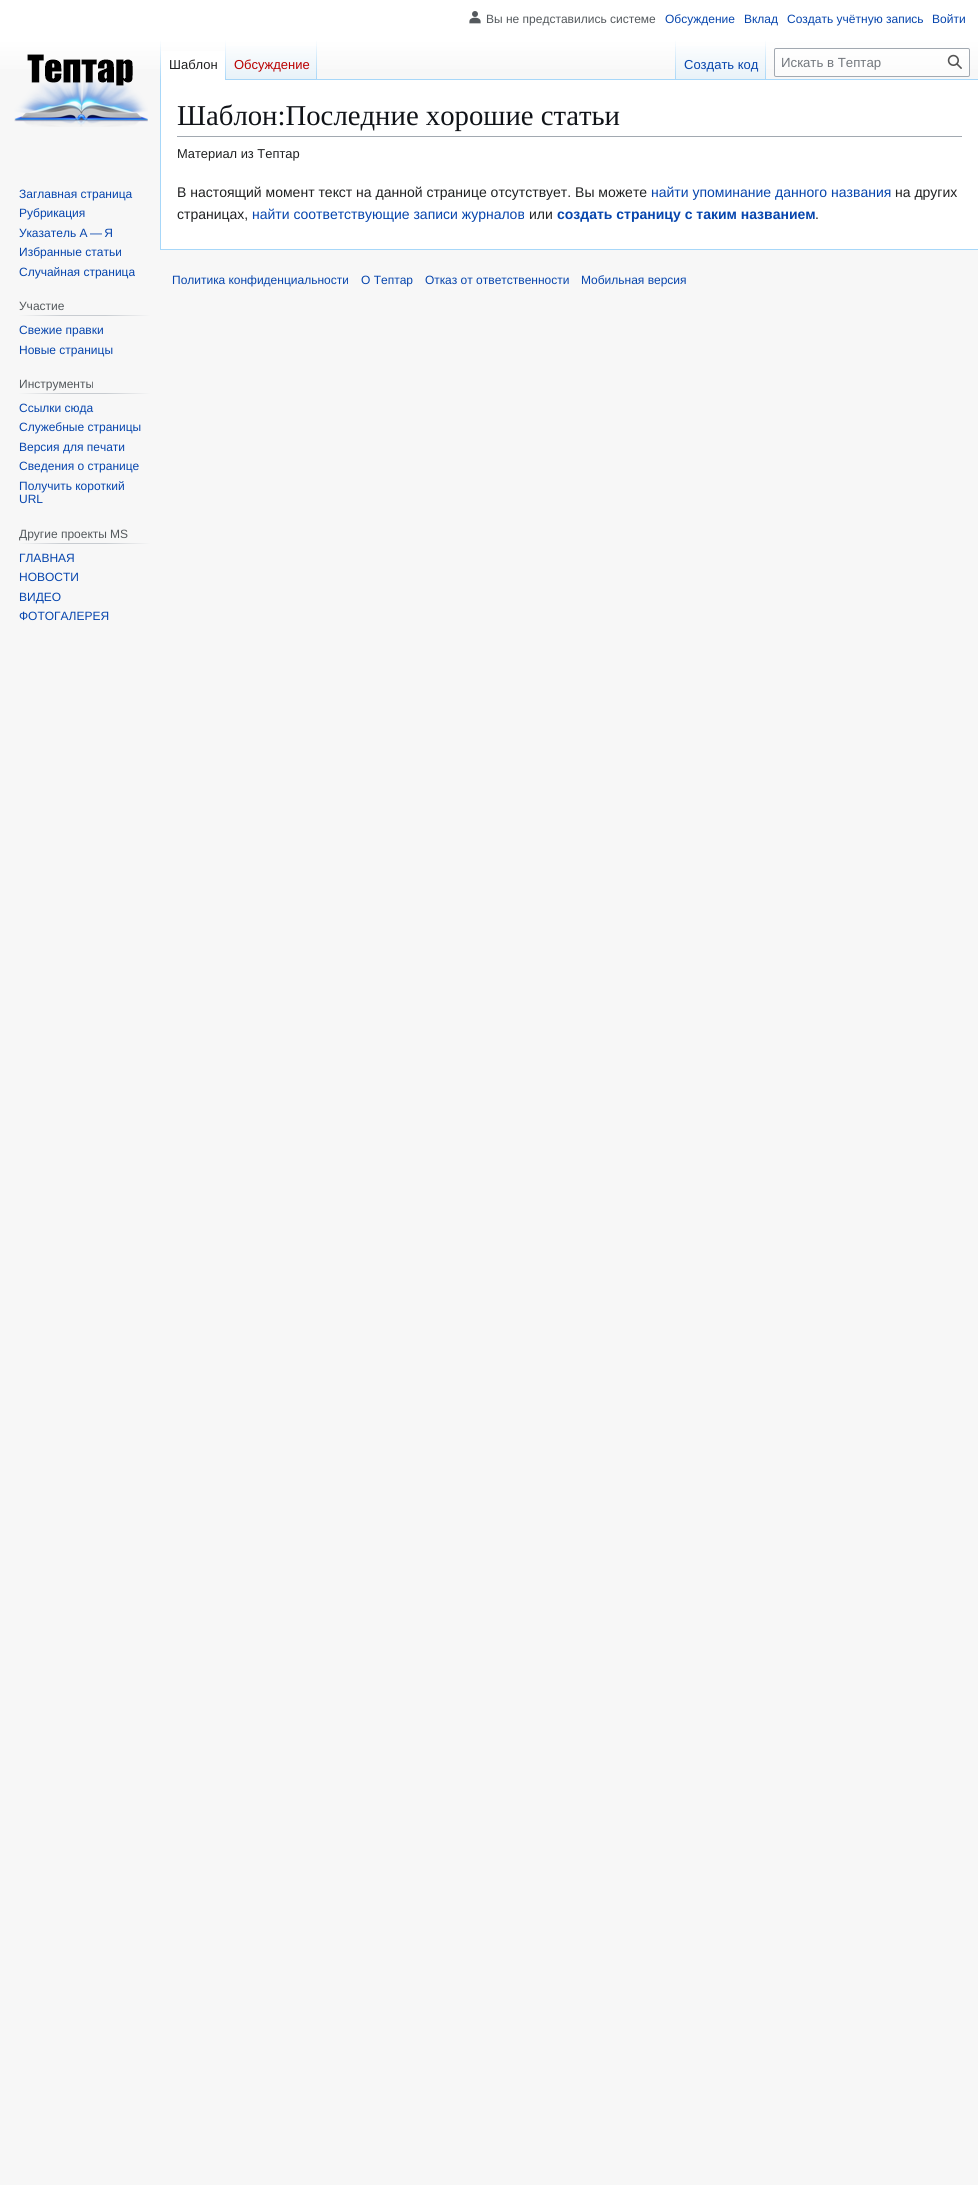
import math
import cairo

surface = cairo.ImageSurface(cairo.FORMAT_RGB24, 978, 2185)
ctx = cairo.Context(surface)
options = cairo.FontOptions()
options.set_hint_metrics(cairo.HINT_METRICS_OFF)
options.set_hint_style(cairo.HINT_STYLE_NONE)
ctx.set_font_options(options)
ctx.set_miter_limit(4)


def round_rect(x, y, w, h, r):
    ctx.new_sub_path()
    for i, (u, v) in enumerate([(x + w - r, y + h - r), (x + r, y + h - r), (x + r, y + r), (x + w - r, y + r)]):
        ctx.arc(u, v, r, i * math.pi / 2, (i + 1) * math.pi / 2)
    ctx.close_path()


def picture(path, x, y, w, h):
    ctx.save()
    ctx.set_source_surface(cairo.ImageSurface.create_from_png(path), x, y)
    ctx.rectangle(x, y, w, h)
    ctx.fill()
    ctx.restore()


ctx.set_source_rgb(0.965, 0.965, 0.965)
ctx.paint()
gradient = cairo.LinearGradient(489, 0, 489, 80)
gradient.add_color_stop_rgba(0.5, 1, 1, 1, 1)
gradient.add_color_stop_rgba(1, 0.965, 0.965, 0.965, 1)
ctx.set_source(gradient)
ctx.rectangle(0, 0, 978, 69)
ctx.fill()
picture("img1.png", 469, 11, 12, 13)
ctx.select_font_face("Liberation Sans")
ctx.set_font_size(12)
ctx.set_source_rgb(0.329, 0.349, 0.365)
ctx.move_to(486, 23)
ctx.show_text("Вы не представились системе")
ctx.set_source_rgb(0.024, 0.271, 0.678)
ctx.move_to(665, 23)
ctx.show_text("Обсуждение")
ctx.move_to(744, 23)
ctx.show_text("Вклад")
ctx.move_to(787, 23)
ctx.show_text("Создать учётную запись")
ctx.move_to(932, 23)
ctx.show_text("Войти")
ctx.set_source_rgb(0.655, 0.843, 0.976)
ctx.rectangle(160, 249, 818, 1)
ctx.fill()
ctx.rectangle(160, 79, 1, 171)
ctx.fill()
gradient = cairo.LinearGradient(161, 40, 161, 80)
gradient.add_color_stop_rgba(0, 0.655, 0.843, 0.976, 0)
gradient.add_color_stop_rgba(1, 0.655, 0.843, 0.976, 1)
ctx.set_source(gradient)
ctx.rectangle(160, 40, 1, 40)
ctx.fill()
ctx.set_source_rgb(1, 1, 1)
ctx.rectangle(161, 51, 64, 29)
ctx.fill()
gradient = cairo.LinearGradient(226, 40, 226, 80)
gradient.add_color_stop_rgba(0, 1, 1, 1, 1)
gradient.add_color_stop_rgba(1, 0.655, 0.843, 0.976, 1)
ctx.set_source(gradient)
ctx.rectangle(225, 40, 1, 40)
ctx.fill()
ctx.set_font_size(13)
ctx.set_source_rgb(0.125, 0.129, 0.133)
ctx.move_to(169, 69)
ctx.show_text("Шаблон")
gradient = cairo.LinearGradient(272, 80, 272, 40)
gradient.add_color_stop_rgba(0, 0.467, 0.757, 0.965, 1)
gradient.add_color_stop_rgba(0.03, 0.91, 0.949, 0.973, 1)
gradient.add_color_stop_rgba(1, 1, 1, 1, 1)
ctx.set_source(gradient)
ctx.rectangle(226, 46, 91, 34)
ctx.fill()
gradient = cairo.LinearGradient(317, 40, 317, 80)
gradient.add_color_stop_rgba(0, 0.655, 0.843, 0.976, 0)
gradient.add_color_stop_rgba(1, 0.655, 0.843, 0.976, 1)
ctx.set_source(gradient)
ctx.rectangle(316, 40, 1, 40)
ctx.fill()
ctx.set_source_rgb(0.729, 0, 0)
ctx.move_to(234, 69)
ctx.show_text("Обсуждение")
ctx.set_source_rgb(0.655, 0.843, 0.976)
ctx.rectangle(317, 79, 661, 1)
ctx.fill()
gradient = cairo.LinearGradient(676, 40, 676, 80)
gradient.add_color_stop_rgba(0, 0.655, 0.843, 0.976, 0)
gradient.add_color_stop_rgba(1, 0.655, 0.843, 0.976, 1)
ctx.set_source(gradient)
ctx.rectangle(675, 40, 1, 40)
ctx.fill()
gradient = cairo.LinearGradient(721, 80, 721, 40)
gradient.add_color_stop_rgba(0, 0.467, 0.757, 0.965, 1)
gradient.add_color_stop_rgba(0.03, 0.91, 0.949, 0.973, 1)
gradient.add_color_stop_rgba(1, 1, 1, 1, 1)
ctx.set_source(gradient)
ctx.rectangle(676, 46, 90, 33)
ctx.fill()
gradient = cairo.LinearGradient(766, 40, 766, 80)
gradient.add_color_stop_rgba(0, 0.655, 0.843, 0.976, 0)
gradient.add_color_stop_rgba(1, 0.655, 0.843, 0.976, 1)
ctx.set_source(gradient)
ctx.rectangle(765, 40, 1, 40)
ctx.fill()
ctx.set_source_rgb(0.024, 0.271, 0.678)
ctx.move_to(684, 69)
ctx.show_text("Создать код")
ctx.set_source_rgba(1, 1, 1, 0.5)
round_rect(774.5, 48.5, 195, 28, 1.5)
ctx.fill_preserve()
ctx.set_source_rgb(0.635, 0.663, 0.694)
ctx.set_line_width(1)
ctx.stroke()
ctx.set_font_size(13.25)
ctx.set_source_rgb(0.447, 0.467, 0.49)
ctx.move_to(781, 67)
ctx.show_text("Искать в Тептар")
picture("img2.png", 947, 54, 15, 15)
picture("img3.png", 14, 54, 134, 73)
ctx.set_font_size(12)
ctx.set_source_rgb(0.024, 0.271, 0.678)
ctx.move_to(19, 198)
ctx.show_text("Заглавная страница")
ctx.move_to(19, 217)
ctx.show_text("Рубрикация")
ctx.move_to(19, 237)
ctx.show_text("Указатель А — Я")
ctx.move_to(19, 256)
ctx.show_text("Избранные статьи")
ctx.move_to(19, 276)
ctx.show_text("Случайная страница")
gradient = cairo.LinearGradient(19, 316, 150, 316)
gradient.add_color_stop_rgba(0, 0.965, 0.965, 0.965, 1)
gradient.add_color_stop_rgba(0.33, 0.784, 0.8, 0.82, 1)
gradient.add_color_stop_rgba(0.66, 0.784, 0.8, 0.82, 1)
gradient.add_color_stop_rgba(1, 0.965, 0.965, 0.965, 1)
ctx.set_source(gradient)
ctx.rectangle(19, 315, 131, 1)
ctx.fill()
ctx.set_source_rgb(0.329, 0.349, 0.365)
ctx.move_to(19, 310)
ctx.show_text("Участие")
ctx.set_source_rgb(0.024, 0.271, 0.678)
ctx.move_to(19, 334)
ctx.show_text("Свежие правки")
ctx.move_to(19, 354)
ctx.show_text("Новые страницы")
gradient = cairo.LinearGradient(19, 394, 150, 394)
gradient.add_color_stop_rgba(0, 0.965, 0.965, 0.965, 1)
gradient.add_color_stop_rgba(0.33, 0.784, 0.8, 0.82, 1)
gradient.add_color_stop_rgba(0.66, 0.784, 0.8, 0.82, 1)
gradient.add_color_stop_rgba(1, 0.965, 0.965, 0.965, 1)
ctx.set_source(gradient)
ctx.rectangle(19, 393, 131, 1)
ctx.fill()
ctx.set_source_rgb(0.329, 0.349, 0.365)
ctx.move_to(19, 388)
ctx.show_text("Инструменты")
ctx.set_source_rgb(0.024, 0.271, 0.678)
ctx.move_to(19, 412)
ctx.show_text("Ссылки сюда")
ctx.move_to(19, 431)
ctx.show_text("Служебные страницы")
ctx.move_to(19, 451)
ctx.show_text("Версия для печати")
ctx.move_to(19, 470)
ctx.show_text("Сведения о странице")
ctx.move_to(19, 490)
ctx.show_text("Получить короткий")
ctx.move_to(19, 503)
ctx.show_text("URL")
gradient = cairo.LinearGradient(19, 544, 150, 544)
gradient.add_color_stop_rgba(0, 0.965, 0.965, 0.965, 1)
gradient.add_color_stop_rgba(0.33, 0.784, 0.8, 0.82, 1)
gradient.add_color_stop_rgba(0.66, 0.784, 0.8, 0.82, 1)
gradient.add_color_stop_rgba(1, 0.965, 0.965, 0.965, 1)
ctx.set_source(gradient)
ctx.rectangle(19, 543, 131, 1)
ctx.fill()
ctx.set_source_rgb(0.329, 0.349, 0.365)
ctx.move_to(19, 538)
ctx.show_text("Другие проекты MS")
ctx.set_source_rgb(0.024, 0.271, 0.678)
ctx.move_to(19, 562)
ctx.show_text("ГЛАВНАЯ")
ctx.move_to(19, 581)
ctx.show_text("НОВОСТИ")
ctx.move_to(19, 601)
ctx.show_text("ВИДЕО")
ctx.move_to(19, 620)
ctx.show_text("ФОТОГАЛЕРЕЯ")
ctx.set_source_rgb(1, 1, 1)
ctx.rectangle(161, 80, 817, 169)
ctx.fill()
ctx.set_source_rgb(0.635, 0.663, 0.694)
ctx.rectangle(177, 136, 785, 1)
ctx.fill()
ctx.select_font_face("Liberation Serif")
ctx.set_font_size(28.75)
ctx.set_source_rgb(0.063, 0.078, 0.094)
ctx.move_to(177, 125)
ctx.show_text("Шаблон:Последние хорошие статьи")
ctx.select_font_face("Liberation Sans")
ctx.set_font_size(12.9)
ctx.set_source_rgb(0.125, 0.129, 0.133)
ctx.move_to(177, 158)
ctx.show_text("Материал из Тептар")
ctx.set_font_size(14)
ctx.move_to(177, 197)
ctx.show_text("В настоящий момент текст на данной странице отсутствует. Вы можете")
ctx.set_source_rgb(0.024, 0.271, 0.678)
ctx.move_to(651, 197)
ctx.show_text("найти упоминание данного названия")
ctx.set_source_rgb(0.125, 0.129, 0.133)
ctx.move_to(895, 197)
ctx.show_text("на других")
ctx.move_to(177, 219)
ctx.show_text("страницах,")
ctx.set_source_rgb(0.024, 0.271, 0.678)
ctx.move_to(252, 219)
ctx.show_text("найти соответствующие записи журналов")
ctx.set_source_rgb(0.125, 0.129, 0.133)
ctx.move_to(529, 219)
ctx.show_text("или")
ctx.select_font_face("Liberation Sans", cairo.FONT_SLANT_NORMAL, cairo.FONT_WEIGHT_BOLD)
ctx.set_source_rgb(0.024, 0.271, 0.678)
ctx.move_to(557, 219)
ctx.show_text("создать страницу с таким названием")
ctx.select_font_face("Liberation Sans")
ctx.set_source_rgb(0.125, 0.129, 0.133)
ctx.move_to(815, 219)
ctx.show_text(".")
ctx.set_font_size(12)
ctx.set_source_rgb(0.024, 0.271, 0.678)
ctx.move_to(172, 284)
ctx.show_text("Политика конфиденциальности")
ctx.move_to(361, 284)
ctx.show_text("О Тептар")
ctx.move_to(425, 284)
ctx.show_text("Отказ от ответственности")
ctx.move_to(581, 284)
ctx.show_text("Мобильная версия")
surface.write_to_png("page.png")
